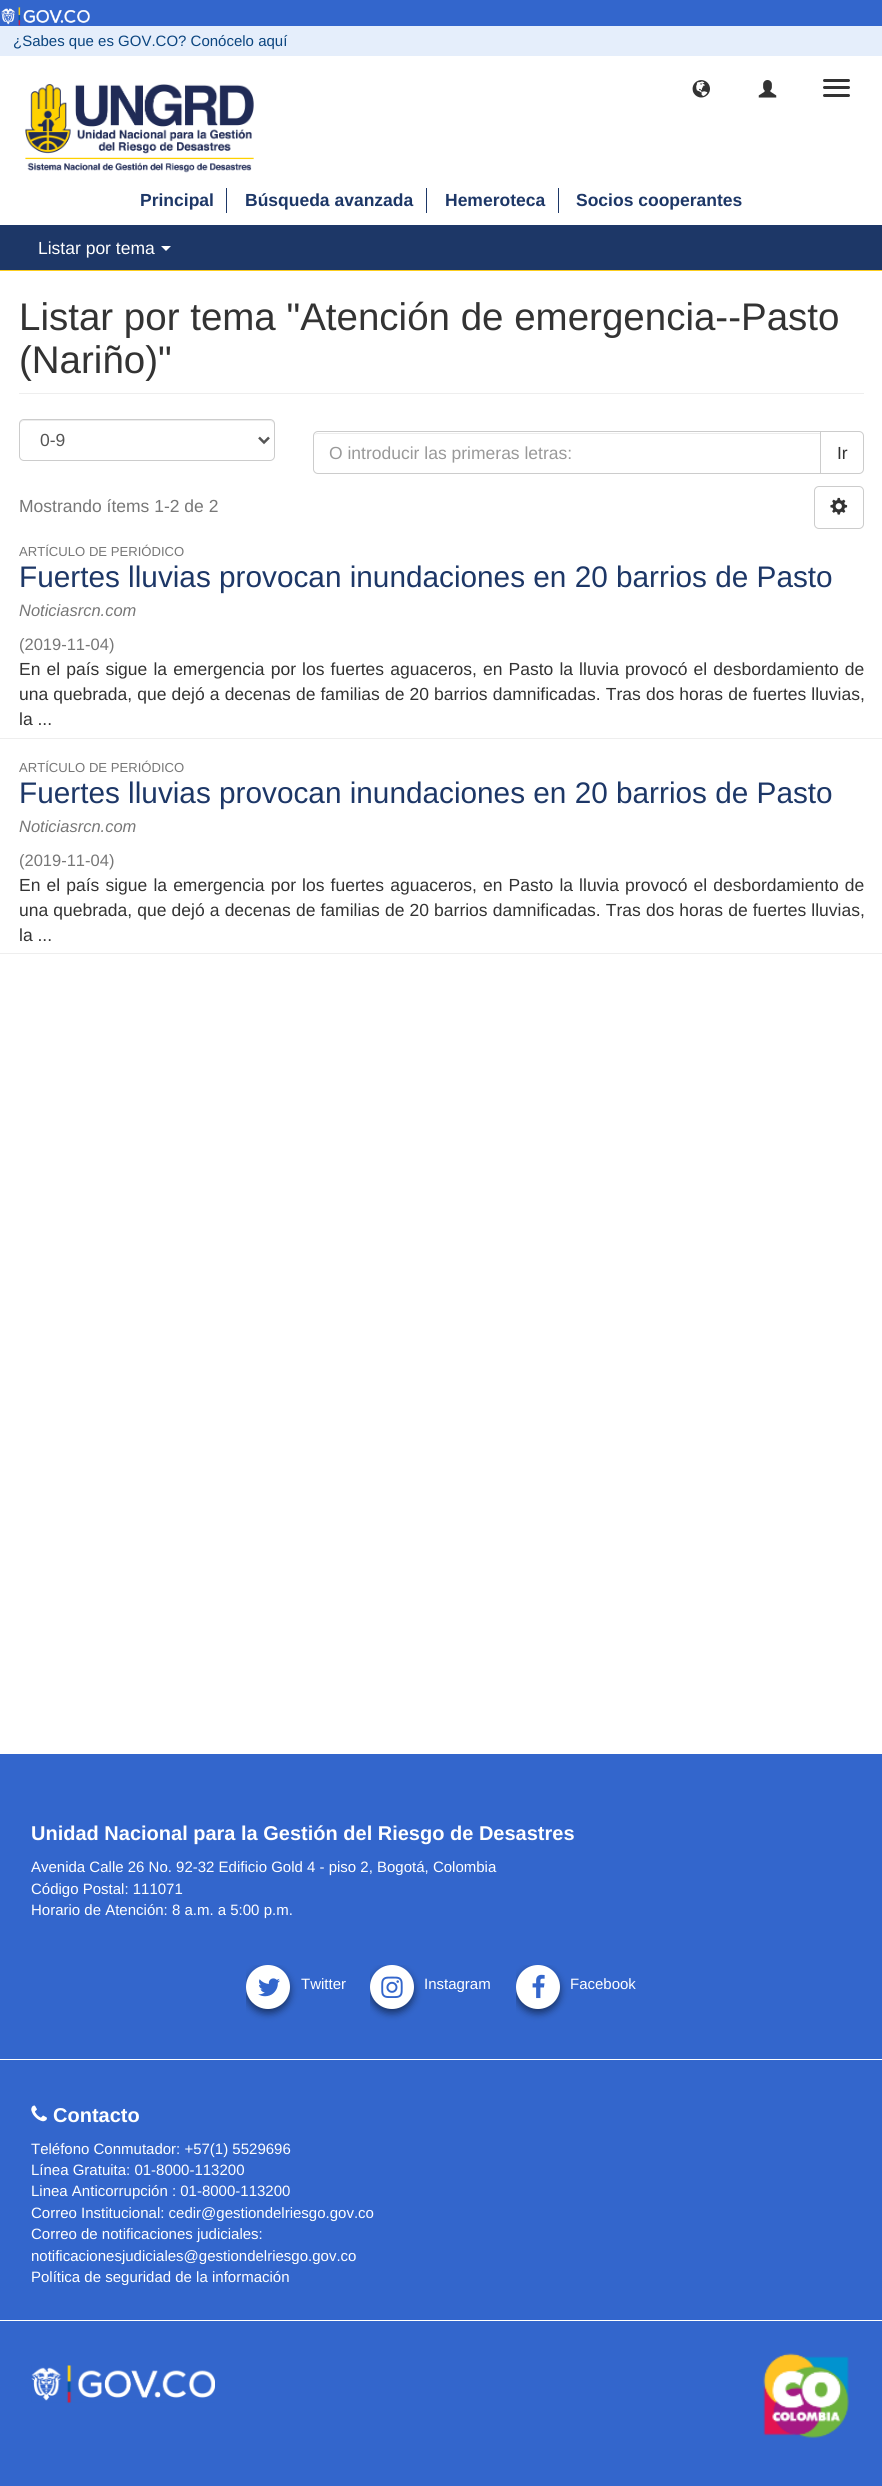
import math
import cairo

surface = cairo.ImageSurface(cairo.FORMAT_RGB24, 882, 2486)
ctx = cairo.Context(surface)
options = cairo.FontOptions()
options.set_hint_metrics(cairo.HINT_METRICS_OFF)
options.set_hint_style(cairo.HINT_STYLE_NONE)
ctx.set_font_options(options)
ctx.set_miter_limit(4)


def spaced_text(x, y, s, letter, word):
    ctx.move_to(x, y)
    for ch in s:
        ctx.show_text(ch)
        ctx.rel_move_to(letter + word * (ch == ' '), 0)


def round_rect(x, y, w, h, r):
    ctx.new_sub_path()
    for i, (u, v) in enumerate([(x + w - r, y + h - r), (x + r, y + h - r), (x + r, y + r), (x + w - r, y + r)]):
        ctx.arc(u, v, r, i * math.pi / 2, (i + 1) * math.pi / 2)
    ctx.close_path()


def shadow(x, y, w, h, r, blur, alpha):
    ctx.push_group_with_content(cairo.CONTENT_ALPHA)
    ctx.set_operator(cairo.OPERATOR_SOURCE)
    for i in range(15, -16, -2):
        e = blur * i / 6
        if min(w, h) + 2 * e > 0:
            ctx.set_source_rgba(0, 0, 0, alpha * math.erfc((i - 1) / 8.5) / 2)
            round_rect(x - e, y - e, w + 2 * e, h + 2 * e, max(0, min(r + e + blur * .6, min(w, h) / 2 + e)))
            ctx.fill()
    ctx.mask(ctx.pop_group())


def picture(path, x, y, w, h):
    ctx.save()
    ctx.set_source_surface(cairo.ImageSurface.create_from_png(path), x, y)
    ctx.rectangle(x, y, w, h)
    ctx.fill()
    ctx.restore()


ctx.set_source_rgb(1, 1, 1)
ctx.paint()
ctx.set_source_rgb(0.2, 0.4, 0.8)
ctx.rectangle(0, 0, 882, 26)
ctx.fill()
picture("img1.png", 1, 7, 89, 19)
ctx.set_source_rgb(0.898, 0.933, 0.984)
ctx.rectangle(0, 26, 882, 30)
ctx.fill()
ctx.select_font_face("Liberation Sans")
ctx.set_font_size(15)
ctx.set_source_rgb(0.043, 0.271, 0.498)
ctx.move_to(13, 46)
ctx.show_text("¿Sabes que es GOV.CO? Conócelo aquí")
picture("img2.png", 25, 84, 229, 89)
picture("img3.png", 692, 80, 18, 18)
picture("img4.png", 758, 80, 19, 18)
ctx.set_source_rgb(0.2, 0.2, 0.2)
round_rect(823, 79, 27, 3, 1.5)
ctx.fill()
round_rect(823, 86, 27, 3, 1.5)
ctx.fill()
round_rect(823, 94, 27, 3, 1.5)
ctx.fill()
ctx.set_source_rgb(0.114, 0.216, 0.404)
ctx.rectangle(226, 188, 1, 25)
ctx.fill()
ctx.select_font_face("Liberation Sans", cairo.FONT_SLANT_NORMAL, cairo.FONT_WEIGHT_BOLD)
ctx.set_font_size(17.5)
ctx.move_to(140, 206)
ctx.show_text("Principal")
ctx.rectangle(426, 188, 1, 25)
ctx.fill()
ctx.move_to(245, 206)
ctx.show_text("Búsqueda avanzada")
ctx.rectangle(558, 188, 1, 25)
ctx.fill()
ctx.move_to(445, 206)
ctx.show_text("Hemeroteca")
ctx.move_to(576, 206)
ctx.show_text("Socios cooperantes")
ctx.rectangle(0, 225, 882, 45)
ctx.fill()
ctx.set_source_rgb(0.988, 0.804, 0.114)
ctx.rectangle(0, 270, 882, 1)
ctx.fill()
ctx.select_font_face("Liberation Sans")
ctx.set_source_rgb(1, 1, 1)
ctx.move_to(38, 254)
ctx.show_text("Listar por tema")
ctx.new_path()
ctx.move_to(161, 246)
ctx.line_to(171, 246)
ctx.line_to(166, 251)
ctx.close_path()
ctx.fill()
ctx.set_source_rgb(0.933, 0.933, 0.933)
ctx.rectangle(19, 393, 845, 1)
ctx.fill()
ctx.set_font_size(38.5)
ctx.set_source_rgb(0.2, 0.2, 0.2)
ctx.move_to(19, 330)
ctx.show_text("Listar por tema \"Atención de emergencia--Pasto")
ctx.move_to(19, 373)
ctx.show_text("(Nariño)\"")
ctx.set_source_rgb(0.925, 0.925, 0.925)
ctx.new_path()
ctx.move_to(24, 421)
ctx.line_to(270, 421)
ctx.curve_to(272, 421, 274, 423, 274, 425)
ctx.line_to(274, 424)
ctx.curve_to(274, 422, 272, 420, 270, 420)
ctx.line_to(24, 420)
ctx.curve_to(22, 420, 20, 422, 20, 424)
ctx.line_to(20, 425)
ctx.curve_to(20, 423, 22, 421, 24, 421)
ctx.close_path()
ctx.fill()
round_rect(19.5, 419.5, 255, 41, 4.5)
ctx.set_source_rgb(0.8, 0.8, 0.8)
ctx.set_line_width(1)
ctx.stroke()
ctx.new_path()
ctx.move_to(259, 437.5)
ctx.line_to(264, 442.5)
ctx.line_to(269, 437.5)
ctx.set_source_rgb(0.333, 0.333, 0.333)
ctx.set_line_width(2.5)
ctx.stroke()
ctx.set_font_size(17.5)
ctx.move_to(40, 446)
ctx.show_text("0-9")
ctx.new_path()
ctx.move_to(820.5, 431.5)
ctx.line_to(859, 431.5)
ctx.curve_to(861.5, 431.5, 863.5, 433.5, 863.5, 436)
ctx.line_to(863.5, 469)
ctx.curve_to(863.5, 471.5, 861.5, 473.5, 859, 473.5)
ctx.line_to(820.5, 473.5)
ctx.close_path()
ctx.set_source_rgb(0.8, 0.8, 0.8)
ctx.set_line_width(1)
ctx.stroke()
ctx.set_source_rgb(1, 1, 1)
ctx.new_path()
ctx.move_to(318, 431)
ctx.line_to(821, 431)
ctx.line_to(821, 474)
ctx.line_to(318, 474)
ctx.curve_to(315, 474, 313, 472, 313, 469)
ctx.line_to(313, 436)
ctx.curve_to(313, 433, 315, 431, 318, 431)
ctx.close_path()
ctx.fill()
ctx.set_source_rgb(0.925, 0.925, 0.925)
ctx.new_path()
ctx.move_to(318, 434)
ctx.line_to(820, 434)
ctx.line_to(820, 433)
ctx.line_to(318, 433)
ctx.curve_to(315, 433, 314, 435, 314, 438)
ctx.curve_to(314, 435, 315, 434, 318, 434)
ctx.close_path()
ctx.fill()
ctx.new_path()
ctx.move_to(318, 431.5)
ctx.line_to(820.5, 431.5)
ctx.line_to(820.5, 473.5)
ctx.line_to(318, 473.5)
ctx.curve_to(315.5, 473.5, 313.5, 471.5, 313.5, 469)
ctx.line_to(313.5, 436)
ctx.curve_to(313.5, 433.5, 315.5, 431.5, 318, 431.5)
ctx.close_path()
ctx.set_source_rgb(0.8, 0.8, 0.8)
ctx.stroke()
ctx.set_source_rgb(0.6, 0.6, 0.6)
ctx.move_to(329, 459)
ctx.show_text("O introducir las primeras letras:")
ctx.set_source_rgb(0.2, 0.2, 0.2)
ctx.move_to(837, 459)
ctx.show_text("Ir")
ctx.set_source_rgb(0.467, 0.467, 0.467)
ctx.move_to(19, 512)
ctx.show_text("Mostrando ítems 1-2 de 2")
round_rect(814.5, 486.5, 49, 42, 4.5)
ctx.set_source_rgb(0.8, 0.8, 0.8)
ctx.stroke()
picture("img5.png", 830, 497, 18, 18)
ctx.set_source_rgb(0.933, 0.933, 0.933)
ctx.rectangle(0, 738, 882, 1)
ctx.fill()
ctx.set_font_size(13.1)
ctx.set_source_rgb(0.467, 0.467, 0.467)
ctx.move_to(19, 556)
ctx.show_text("ARTÍCULO DE PERIÓDICO")
ctx.set_font_size(29.75)
ctx.set_source_rgb(0.114, 0.216, 0.404)
ctx.move_to(19, 587)
ctx.show_text("Fuertes lluvias provocan inundaciones en 20 barrios de Pasto")
ctx.select_font_face("Liberation Sans", cairo.FONT_SLANT_ITALIC)
ctx.set_font_size(16.5)
ctx.set_source_rgb(0.467, 0.467, 0.467)
ctx.move_to(19, 616)
ctx.show_text("Noticiasrcn.com")
ctx.select_font_face("Liberation Sans")
ctx.move_to(19, 650)
ctx.show_text("(2019-11-04)")
ctx.set_font_size(17.5)
ctx.set_source_rgb(0.2, 0.2, 0.2)
spaced_text(19, 675, "En el país sigue la emergencia por los fuertes aguaceros, en Pasto la lluvia provocó el desbordamiento de", 0, 1.25)
spaced_text(19, 700, "una quebrada, que dejó a decenas de familias de 20 barrios damnificadas. Tras dos horas de fuertes lluvias,", 0, 0.25)
ctx.move_to(19, 725)
ctx.show_text("la ...")
ctx.set_source_rgb(0.933, 0.933, 0.933)
ctx.rectangle(0, 953, 882, 1)
ctx.fill()
ctx.set_font_size(13.1)
ctx.set_source_rgb(0.467, 0.467, 0.467)
ctx.move_to(19, 772)
ctx.show_text("ARTÍCULO DE PERIÓDICO")
ctx.set_font_size(29.75)
ctx.set_source_rgb(0.114, 0.216, 0.404)
ctx.move_to(19, 803)
ctx.show_text("Fuertes lluvias provocan inundaciones en 20 barrios de Pasto")
ctx.select_font_face("Liberation Sans", cairo.FONT_SLANT_ITALIC)
ctx.set_font_size(16.5)
ctx.set_source_rgb(0.467, 0.467, 0.467)
ctx.move_to(19, 832)
ctx.show_text("Noticiasrcn.com")
ctx.select_font_face("Liberation Sans")
ctx.move_to(19, 866)
ctx.show_text("(2019-11-04)")
ctx.set_font_size(17.5)
ctx.set_source_rgb(0.2, 0.2, 0.2)
spaced_text(19, 891, "En el país sigue la emergencia por los fuertes aguaceros, en Pasto la lluvia provocó el desbordamiento de", 0, 1.25)
spaced_text(19, 916, "una quebrada, que dejó a decenas de familias de 20 barrios damnificadas. Tras dos horas de fuertes lluvias,", 0, 0.25)
ctx.move_to(19, 941)
ctx.show_text("la ...")
ctx.set_source_rgb(0.2, 0.4, 0.8)
ctx.rectangle(0, 1754, 882, 732)
ctx.fill()
ctx.set_source_rgb(1, 1, 1)
ctx.rectangle(0, 2059, 882, 1)
ctx.fill()
ctx.select_font_face("Liberation Sans", cairo.FONT_SLANT_NORMAL, cairo.FONT_WEIGHT_BOLD)
ctx.set_font_size(20)
ctx.move_to(31, 1840)
ctx.show_text("Unidad Nacional para la Gestión del Riesgo de Desastres")
ctx.select_font_face("Liberation Sans")
ctx.set_font_size(15)
ctx.move_to(31, 1872)
ctx.show_text("Avenida Calle 26 No. 92-32 Edificio Gold 4 - piso 2, Bogotá, Colombia")
ctx.move_to(31, 1894)
ctx.show_text("Código Postal: 111071")
ctx.move_to(31, 1915)
ctx.show_text("Horario de Atención: 8 a.m. a 5:00 p.m.")
ctx.save()
ctx.rectangle(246, 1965, 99, 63)
ctx.clip()
ctx.set_source_rgb(0, 0, 0)
shadow(246, 1969, 44, 44, 22, 4, 0.5)
ctx.restore()
ctx.arc(268, 1987, 22, 0, 2 * math.pi)
ctx.fill()
picture("img6.png", 258, 1978, 22, 19)
ctx.move_to(301, 1989)
ctx.show_text("Twitter")
ctx.save()
ctx.rectangle(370, 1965, 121, 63)
ctx.clip()
ctx.set_source_rgb(0, 0, 0)
shadow(370, 1969, 44, 44, 22, 4, 0.5)
ctx.restore()
ctx.arc(392, 1987, 22, 0, 2 * math.pi)
ctx.fill()
picture("img7.png", 381, 1976, 22, 22)
ctx.move_to(424, 1989)
ctx.show_text("Instagram")
ctx.save()
ctx.rectangle(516, 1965, 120, 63)
ctx.clip()
ctx.set_source_rgb(0, 0, 0)
shadow(516, 1969, 44, 44, 22, 4, 0.5)
ctx.restore()
ctx.arc(538, 1987, 22, 0, 2 * math.pi)
ctx.fill()
picture("img8.png", 532, 1974, 13, 25)
ctx.move_to(570, 1989)
ctx.show_text("Facebook")
picture("img9.png", 31, 2105, 16, 17)
ctx.select_font_face("Liberation Sans", cairo.FONT_SLANT_NORMAL, cairo.FONT_WEIGHT_BOLD)
ctx.set_font_size(20)
ctx.move_to(53, 2122)
ctx.show_text("Contacto")
ctx.select_font_face("Liberation Sans")
ctx.set_font_size(15)
ctx.move_to(31, 2154)
ctx.show_text("Teléfono Conmutador: +57(1) 5529696")
ctx.move_to(31, 2175)
ctx.show_text("Línea Gratuita: 01-8000-113200")
ctx.move_to(31, 2196)
ctx.show_text("Linea Anticorrupción : 01-8000-113200")
ctx.move_to(31, 2218)
ctx.show_text("Correo Institucional: cedir@gestiondelriesgo.gov.co")
ctx.move_to(31, 2239)
ctx.show_text("Correo de notificaciones judiciales:")
ctx.move_to(31, 2261)
ctx.show_text("notificacionesjudiciales@gestiondelriesgo.gov.co")
ctx.move_to(31, 2282)
ctx.show_text("Política de seguridad de la información")
ctx.rectangle(0, 2320, 882, 1)
ctx.fill()
picture("img10.png", 31, 2365, 184, 38)
picture("img11.png", 763, 2353, 86, 85)
surface.write_to_png("page.png")
